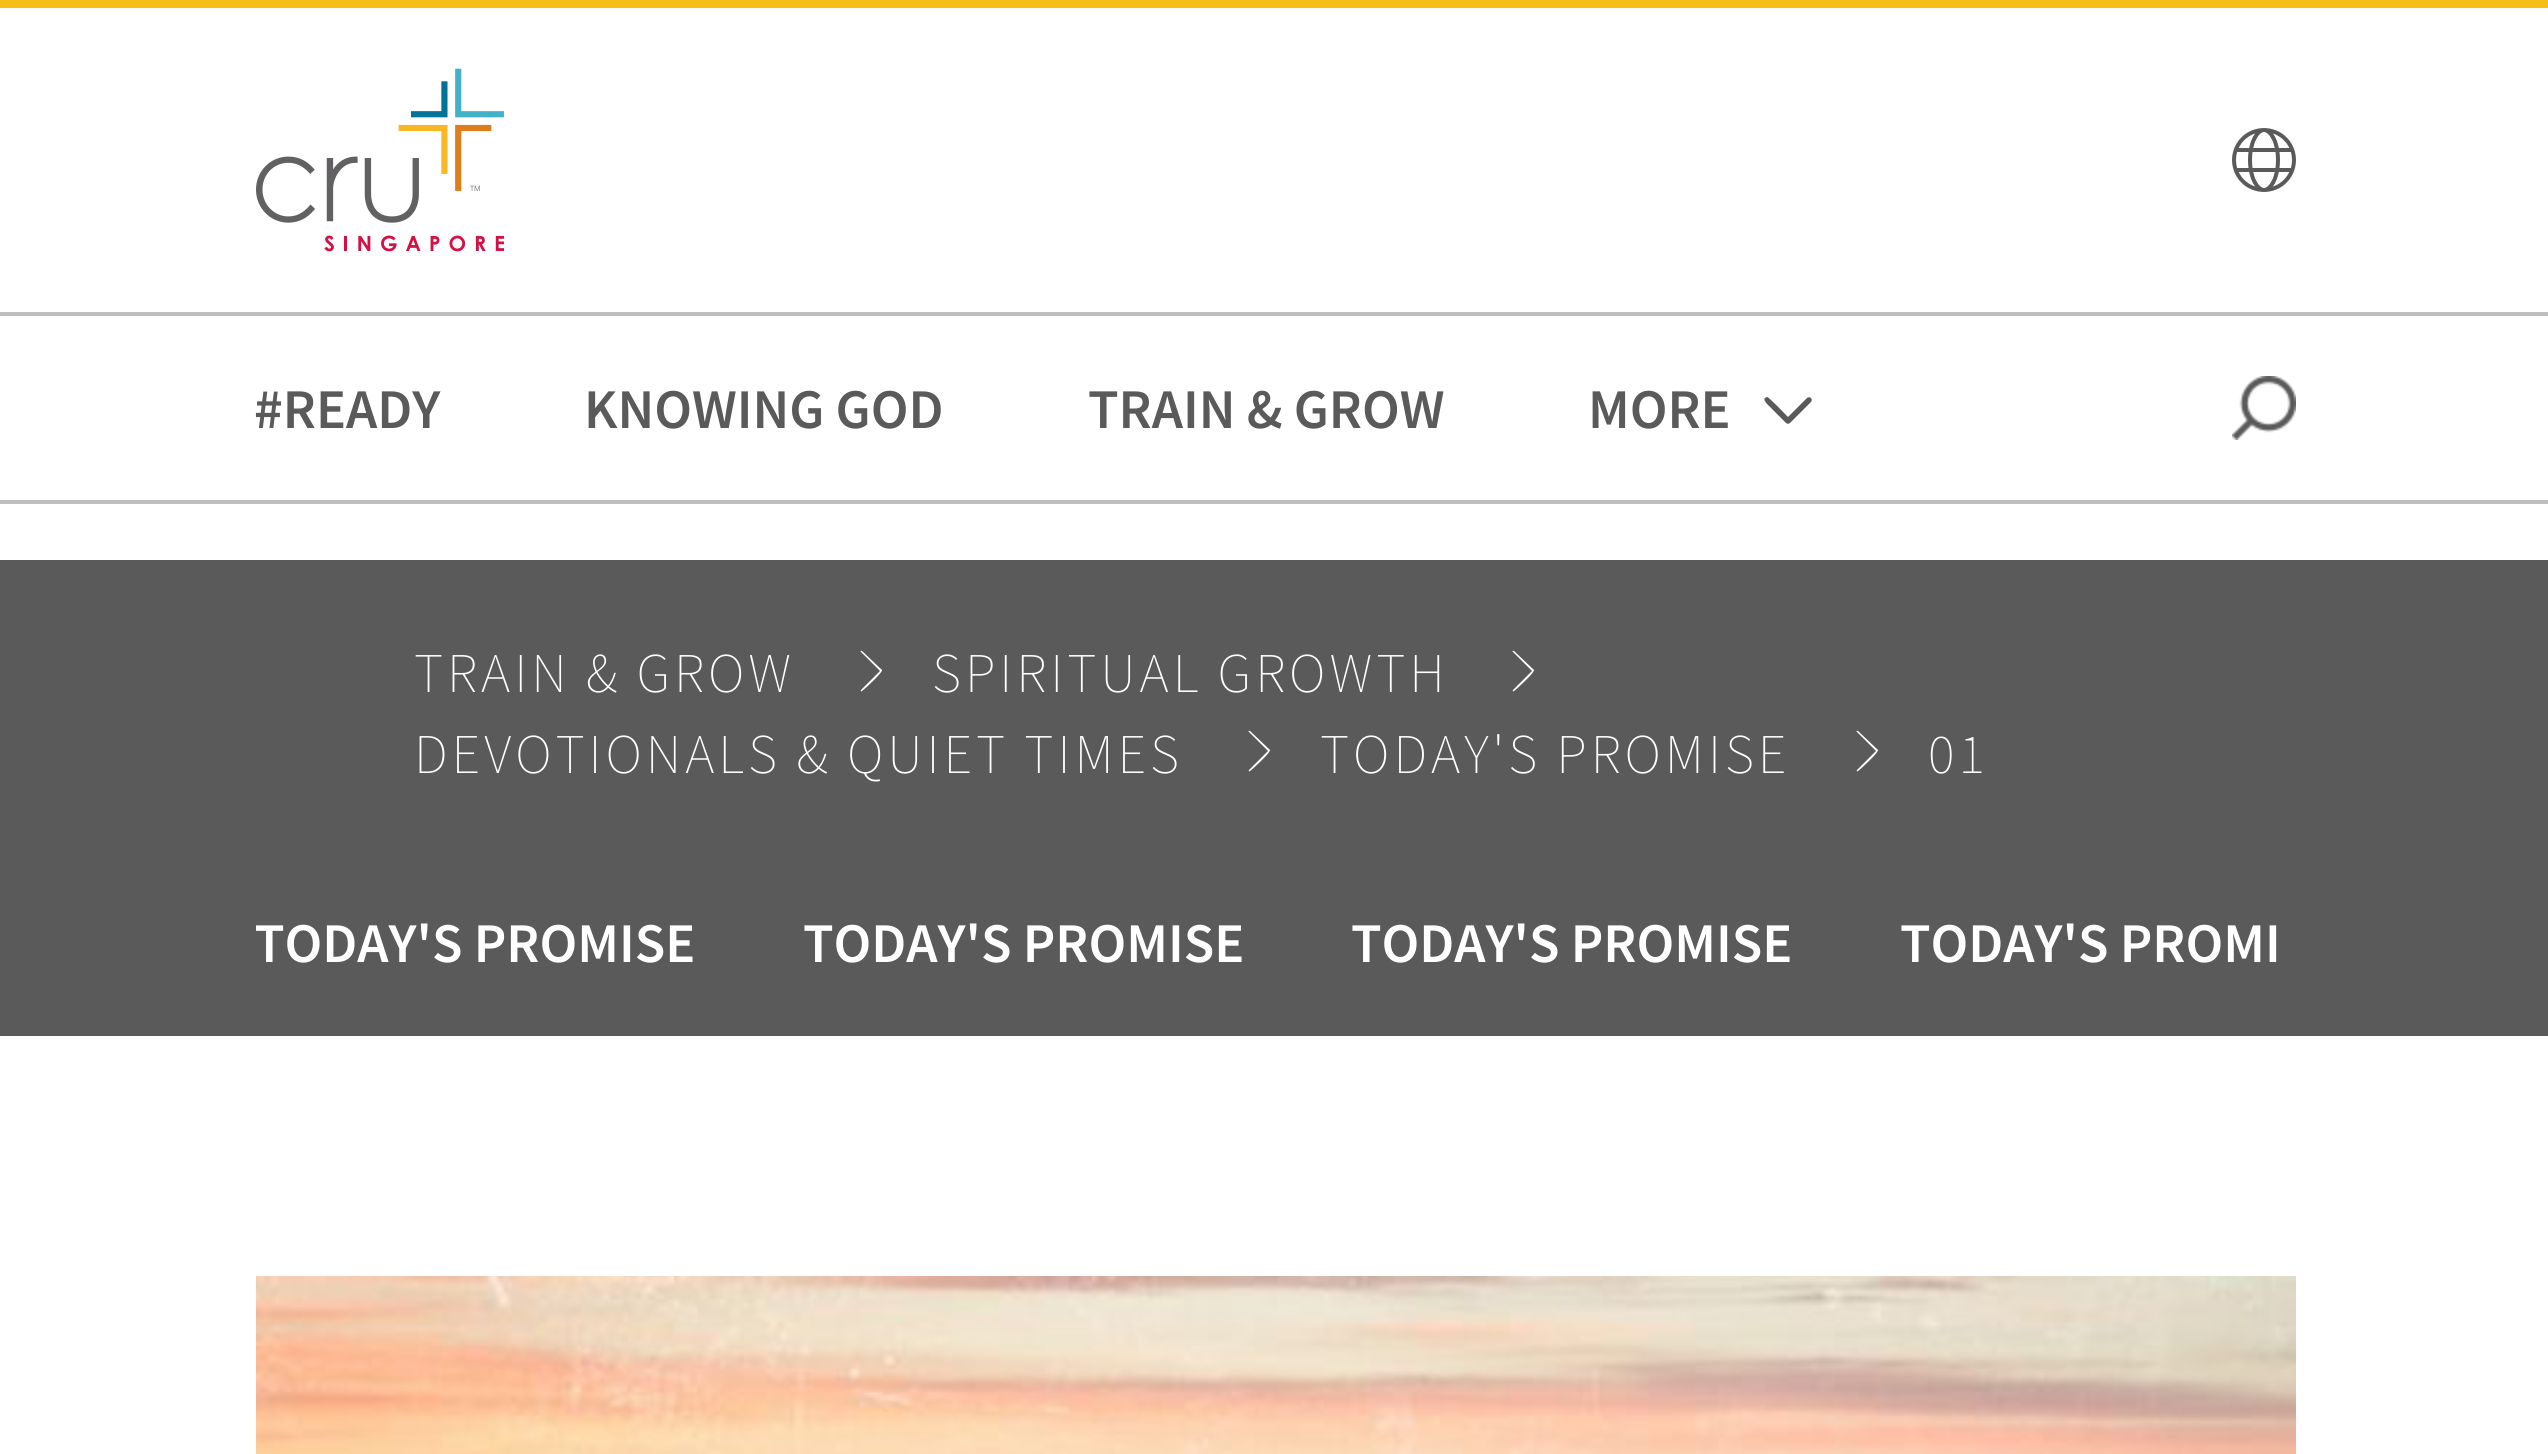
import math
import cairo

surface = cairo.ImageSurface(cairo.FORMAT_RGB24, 2548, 1454)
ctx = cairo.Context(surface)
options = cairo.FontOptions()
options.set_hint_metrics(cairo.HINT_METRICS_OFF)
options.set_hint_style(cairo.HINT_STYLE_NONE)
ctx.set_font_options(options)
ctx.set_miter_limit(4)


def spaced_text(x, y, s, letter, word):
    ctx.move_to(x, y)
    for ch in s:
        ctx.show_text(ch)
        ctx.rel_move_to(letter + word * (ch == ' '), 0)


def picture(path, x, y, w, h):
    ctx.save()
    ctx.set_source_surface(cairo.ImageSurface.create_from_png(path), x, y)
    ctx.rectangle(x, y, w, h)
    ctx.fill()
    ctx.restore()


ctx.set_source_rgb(1, 1, 1)
ctx.paint()
ctx.set_source_rgb(0.961, 0.745, 0.098)
ctx.rectangle(0, 0, 2548, 8)
ctx.fill()
ctx.set_source_rgb(0.745, 0.745, 0.745)
ctx.rectangle(0, 312, 2548, 4)
ctx.fill()
picture("img1.png", 256, 68, 248, 184)
picture("img2.png", 2232, 128, 64, 64)
ctx.rectangle(0, 500, 2548, 4)
ctx.fill()
ctx.select_font_face("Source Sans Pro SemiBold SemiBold")
ctx.set_font_size(56)
ctx.set_source_rgb(0.353, 0.353, 0.353)
ctx.move_to(254, 428)
ctx.show_text("#READY")
ctx.move_to(584, 428)
ctx.show_text("KNOWING GOD")
ctx.move_to(1088, 428)
ctx.show_text("TRAIN & GROW")
ctx.move_to(1588, 428)
ctx.show_text("MORE")
ctx.new_path()
ctx.move_to(1786, 423)
ctx.curve_to(1787, 424, 1789, 424, 1790, 423)
ctx.line_to(1811, 402)
ctx.curve_to(1812, 401, 1812, 399, 1811, 398)
ctx.curve_to(1810, 397, 1808, 397, 1807, 398)
ctx.line_to(1788, 417)
ctx.curve_to(1785, 414, 1769, 397, 1767, 397)
ctx.curve_to(1759, 399, 1772, 408, 1772, 409)
ctx.close_path()
ctx.fill()
picture("img3.png", 2232, 376, 64, 64)
ctx.rectangle(0, 560, 2548, 476)
ctx.fill()
ctx.select_font_face("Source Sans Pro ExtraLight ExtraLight")
ctx.set_source_rgb(1, 1, 1)
spaced_text(414, 692, "TRAIN & GROW", 4, 0)
ctx.new_path()
ctx.move_to(882, 670)
ctx.curve_to(883, 672, 866, 688, 862, 691)
ctx.curve_to(862, 692, 860, 691, 861, 690)
ctx.line_to(880, 671)
ctx.line_to(861, 652)
ctx.curve_to(860, 652, 861, 650, 862, 651)
ctx.close_path()
ctx.fill()
spaced_text(932, 692, "SPIRITUAL GROWTH", 4, 0)
ctx.new_path()
ctx.move_to(1534, 670)
ctx.curve_to(1535, 672, 1518, 688, 1514, 691)
ctx.curve_to(1514, 692, 1512, 691, 1513, 690)
ctx.line_to(1532, 671)
ctx.line_to(1513, 652)
ctx.curve_to(1512, 652, 1513, 650, 1514, 651)
ctx.close_path()
ctx.fill()
spaced_text(414, 773, "DEVOTIONALS & QUIET TIMES", 4, 0)
ctx.new_path()
ctx.move_to(1270, 750)
ctx.curve_to(1271, 752, 1254, 768, 1250, 771)
ctx.curve_to(1250, 772, 1248, 771, 1249, 770)
ctx.line_to(1268, 751)
ctx.line_to(1249, 732)
ctx.curve_to(1248, 732, 1249, 730, 1250, 731)
ctx.close_path()
ctx.fill()
spaced_text(1320, 773, "TODAY'S PROMISE", 4, 0)
ctx.new_path()
ctx.move_to(1878, 750)
ctx.curve_to(1879, 752, 1862, 768, 1858, 771)
ctx.curve_to(1858, 772, 1856, 771, 1857, 770)
ctx.line_to(1876, 751)
ctx.line_to(1857, 732)
ctx.curve_to(1856, 732, 1857, 730, 1858, 731)
ctx.close_path()
ctx.fill()
spaced_text(1928, 773, "01", 4, 0)
ctx.save()
ctx.rectangle(256, 852, 2040, 184)
ctx.clip()
ctx.select_font_face("Source Sans Pro SemiBold SemiBold")
ctx.move_to(254, 962)
ctx.show_text("TODAY'S PROMISE")
ctx.restore()
ctx.select_font_face("Source Sans Pro SemiBold SemiBold")
ctx.move_to(803, 962)
ctx.show_text("TODAY'S PROMISE")
ctx.move_to(1351, 962)
ctx.show_text("TODAY'S PROMISE")
ctx.move_to(1900, 962)
ctx.show_text("TODAY'S PROMI")
picture("img4.png", 256, 1276, 2040, 178)
surface.write_to_png("page.png")
